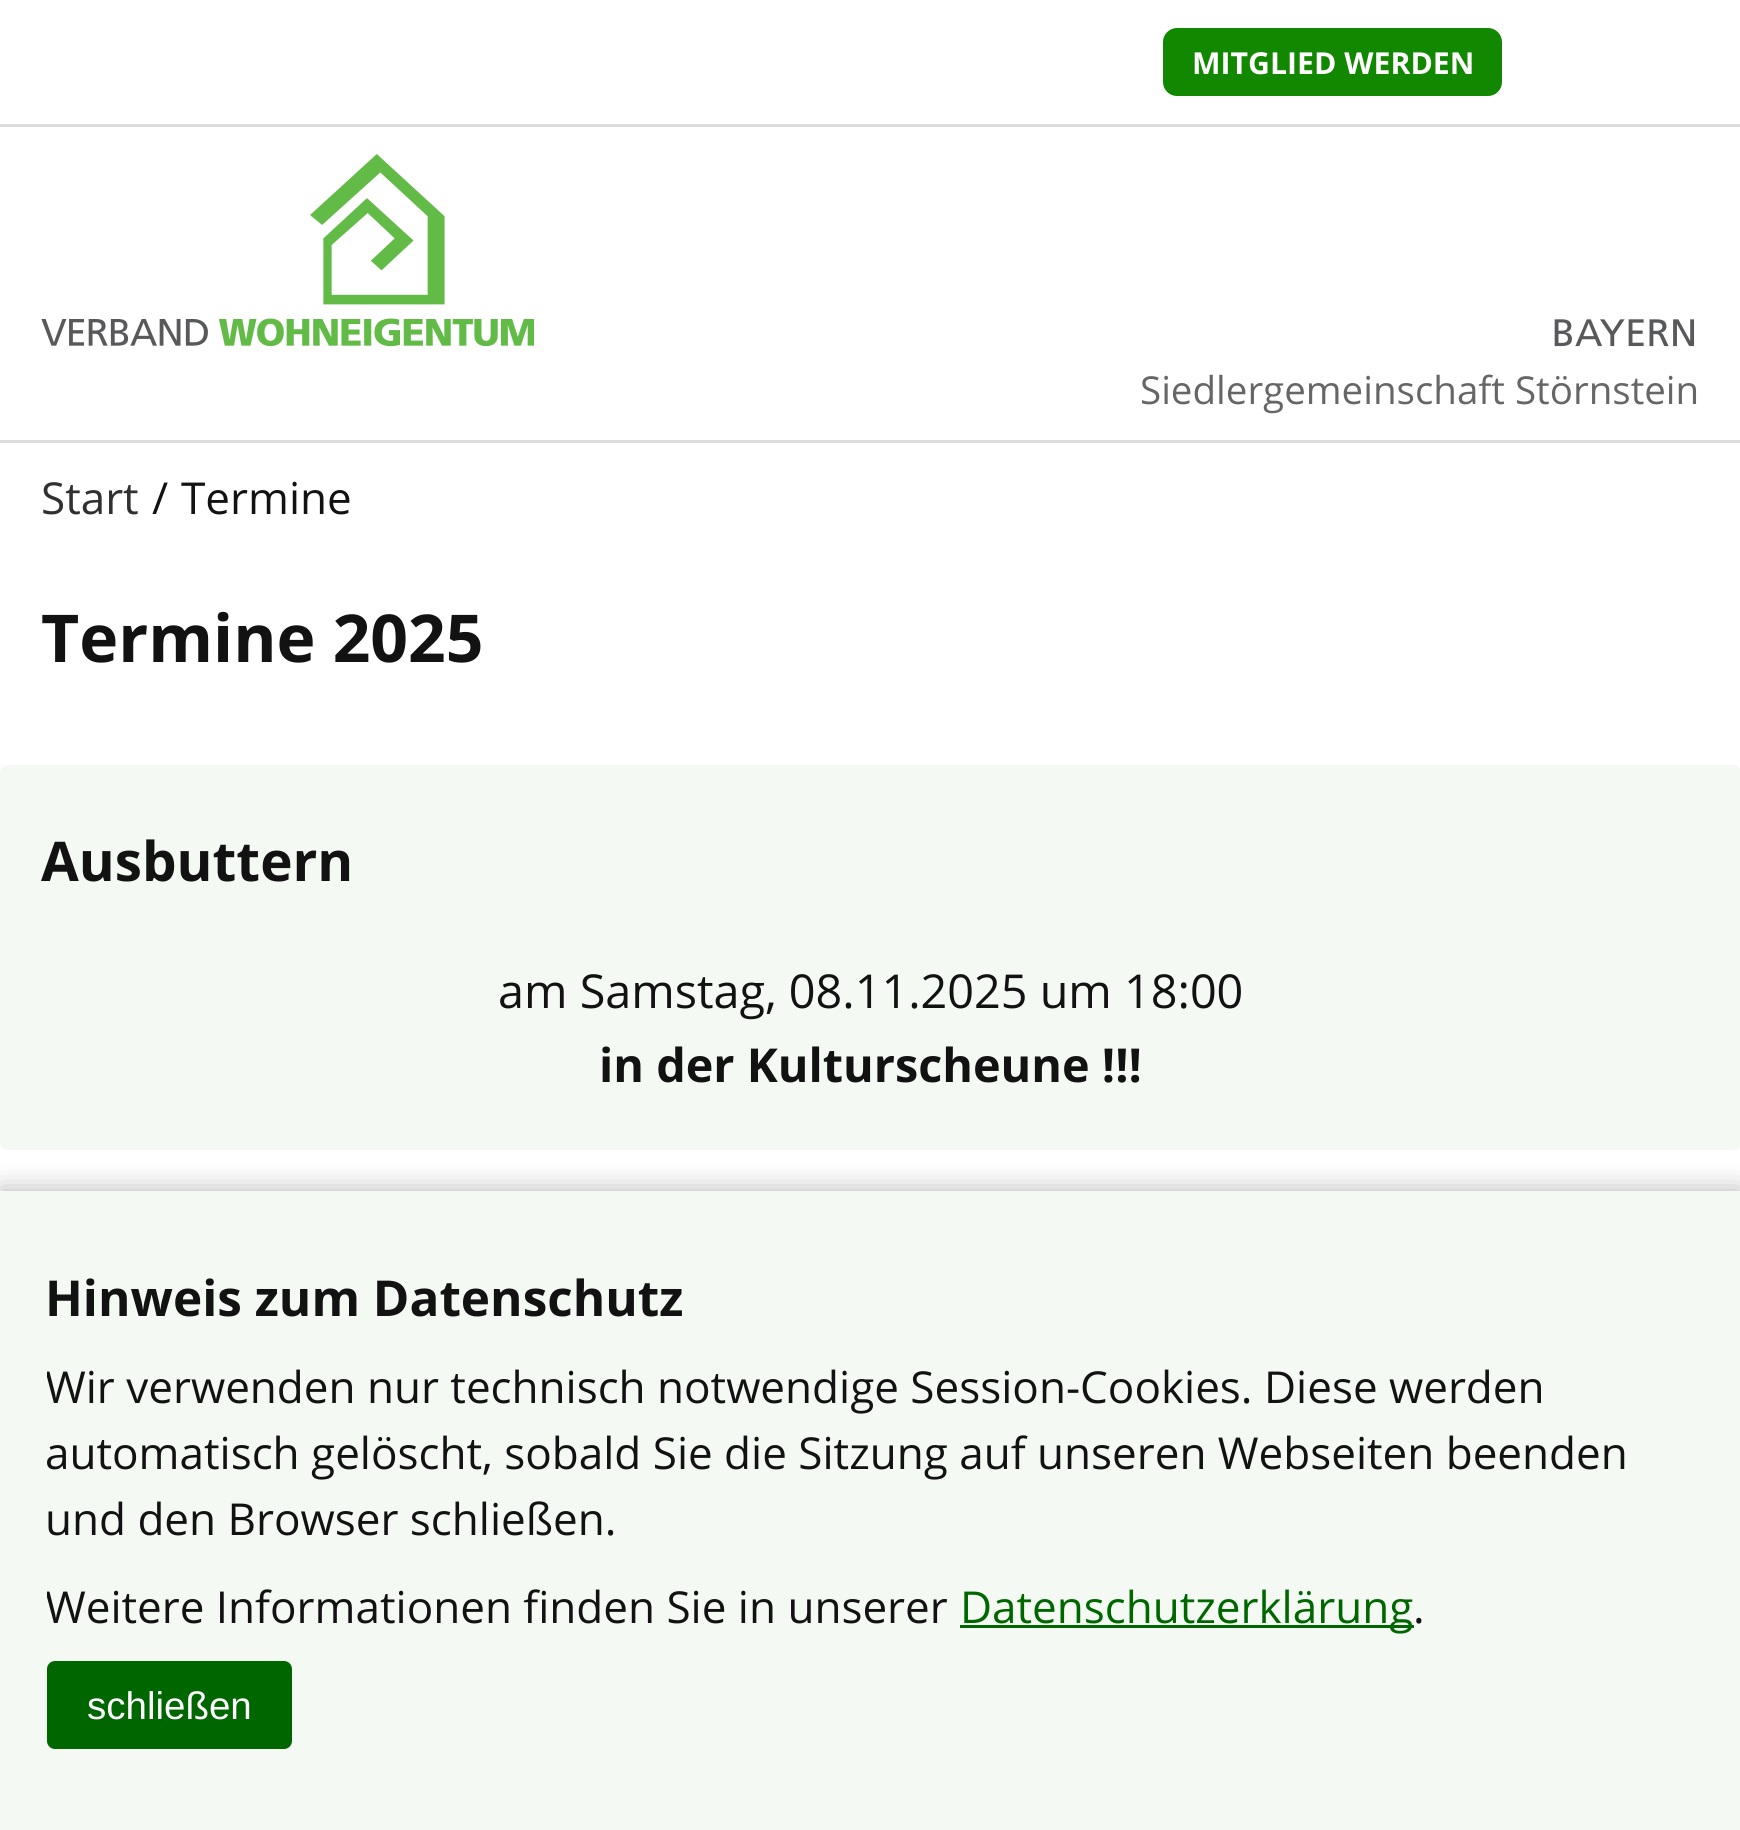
import math
import cairo

surface = cairo.ImageSurface(cairo.FORMAT_RGB24, 1740, 1830)
ctx = cairo.Context(surface)
options = cairo.FontOptions()
options.set_hint_metrics(cairo.HINT_METRICS_OFF)
options.set_hint_style(cairo.HINT_STYLE_NONE)
ctx.set_font_options(options)
ctx.set_miter_limit(4)


def round_rect(x, y, w, h, r):
    ctx.new_sub_path()
    for i, (u, v) in enumerate([(x + w - r, y + h - r), (x + r, y + h - r), (x + r, y + r), (x + w - r, y + r)]):
        ctx.arc(u, v, r, i * math.pi / 2, (i + 1) * math.pi / 2)
    ctx.close_path()


def shadow(x, y, w, h, r, blur, alpha):
    ctx.push_group_with_content(cairo.CONTENT_ALPHA)
    ctx.set_operator(cairo.OPERATOR_SOURCE)
    for i in range(15, -16, -2):
        e = blur * i / 6
        if min(w, h) + 2 * e > 0:
            ctx.set_source_rgba(0, 0, 0, alpha * math.erfc((i - 1) / 8.5) / 2)
            round_rect(x - e, y - e, w + 2 * e, h + 2 * e, max(0, min(r + e + blur * .6, min(w, h) / 2 + e)))
            ctx.fill()
    ctx.mask(ctx.pop_group())


def picture(path, x, y, w, h):
    ctx.save()
    ctx.set_source_surface(cairo.ImageSurface.create_from_png(path), x, y)
    ctx.rectangle(x, y, w, h)
    ctx.fill()
    ctx.restore()


ctx.set_source_rgb(1, 1, 1)
ctx.paint()
ctx.set_source_rgb(0.867, 0.867, 0.867)
ctx.rectangle(0, 124, 1740, 3)
ctx.fill()
ctx.set_source_rgb(0.067, 0.533, 0)
round_rect(1163, 28, 339, 68, 14)
ctx.fill()
ctx.select_font_face("Open Sans", cairo.FONT_SLANT_NORMAL, cairo.FONT_WEIGHT_BOLD)
ctx.set_font_size(30.25)
ctx.set_source_rgb(1, 1, 1)
ctx.move_to(1192, 74)
ctx.show_text("MITGLIED WERDEN")
picture("img1.png", 41, 154, 493, 193)
picture("img2.png", 1554, 319, 141, 28)
ctx.set_source_rgb(0.867, 0.867, 0.867)
ctx.rectangle(0, 440, 1740, 3)
ctx.fill()
ctx.select_font_face("Open Sans")
ctx.set_font_size(38.5)
ctx.set_source_rgb(0.4, 0.4, 0.4)
ctx.move_to(1140, 404)
ctx.show_text("Siedlergemeinschaft Störnstein")
ctx.set_font_size(44)
ctx.set_source_rgb(0.188, 0.188, 0.188)
ctx.move_to(41, 514)
ctx.show_text("Start")
ctx.set_source_rgb(0.071, 0.071, 0.071)
ctx.move_to(152, 514)
ctx.show_text("/")
ctx.move_to(181, 514)
ctx.show_text("Termine")
ctx.select_font_face("Open Sans", cairo.FONT_SLANT_NORMAL, cairo.FONT_WEIGHT_BOLD)
ctx.set_font_size(66)
ctx.move_to(41, 662)
ctx.show_text("Termine 2025")
ctx.set_source_rgb(0.957, 0.973, 0.957)
round_rect(0, 765, 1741, 385, 8)
ctx.fill()
ctx.set_font_size(54.75)
ctx.set_source_rgb(0.071, 0.071, 0.071)
ctx.move_to(41, 881)
ctx.show_text("Ausbuttern")
ctx.select_font_face("Open Sans")
ctx.set_font_size(46.75)
ctx.move_to(498, 1008)
ctx.show_text("am Samstag, 08.11.2025 um 18:00")
ctx.select_font_face("Open Sans", cairo.FONT_SLANT_NORMAL, cairo.FONT_WEIGHT_BOLD)
ctx.move_to(599, 1082)
ctx.show_text("in der Kulturscheune !!!")
ctx.set_source_rgb(0, 0, 0)
shadow(0, 1191, 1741, 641, 0, 14, 0.3)
ctx.set_source_rgb(0.957, 0.973, 0.957)
ctx.rectangle(0, 1191, 1740, 639)
ctx.fill()
ctx.set_font_size(49.5)
ctx.set_source_rgb(0.071, 0.071, 0.071)
ctx.move_to(45, 1316)
ctx.show_text("Hinweis zum Datenschutz")
ctx.save()
ctx.rectangle(47, 1246, 1650, 503)
ctx.clip()
ctx.select_font_face("Open Sans")
ctx.set_font_size(44)
ctx.move_to(45, 1403)
ctx.show_text("Wir verwenden nur technisch notwendige Session-Cookies. Diese werden")
ctx.restore()
ctx.select_font_face("Open Sans")
ctx.set_font_size(44)
ctx.move_to(45, 1469)
ctx.show_text("automatisch gelöscht, sobald Sie die Sitzung auf unseren Webseiten beenden")
ctx.move_to(45, 1535)
ctx.show_text("und den Browser schließen.")
ctx.save()
ctx.rectangle(47, 1246, 1650, 503)
ctx.clip()
ctx.move_to(45, 1623)
ctx.show_text("Weitere Informationen finden Sie in unserer")
ctx.restore()
ctx.set_source_rgb(0, 0.4, 0)
ctx.rectangle(960, 1625, 454, 3)
ctx.fill()
ctx.move_to(960, 1623)
ctx.show_text("Datenschutzerklärung")
ctx.set_source_rgb(0.071, 0.071, 0.071)
ctx.move_to(1413, 1623)
ctx.show_text(".")
ctx.set_source_rgb(0, 0.4, 0)
round_rect(47, 1661, 245, 88, 8)
ctx.fill()
ctx.select_font_face("Liberation Sans")
ctx.set_font_size(38.5)
ctx.set_source_rgb(1, 1, 1)
ctx.move_to(87, 1719)
ctx.show_text("schließen")
surface.write_to_png("page.png")
